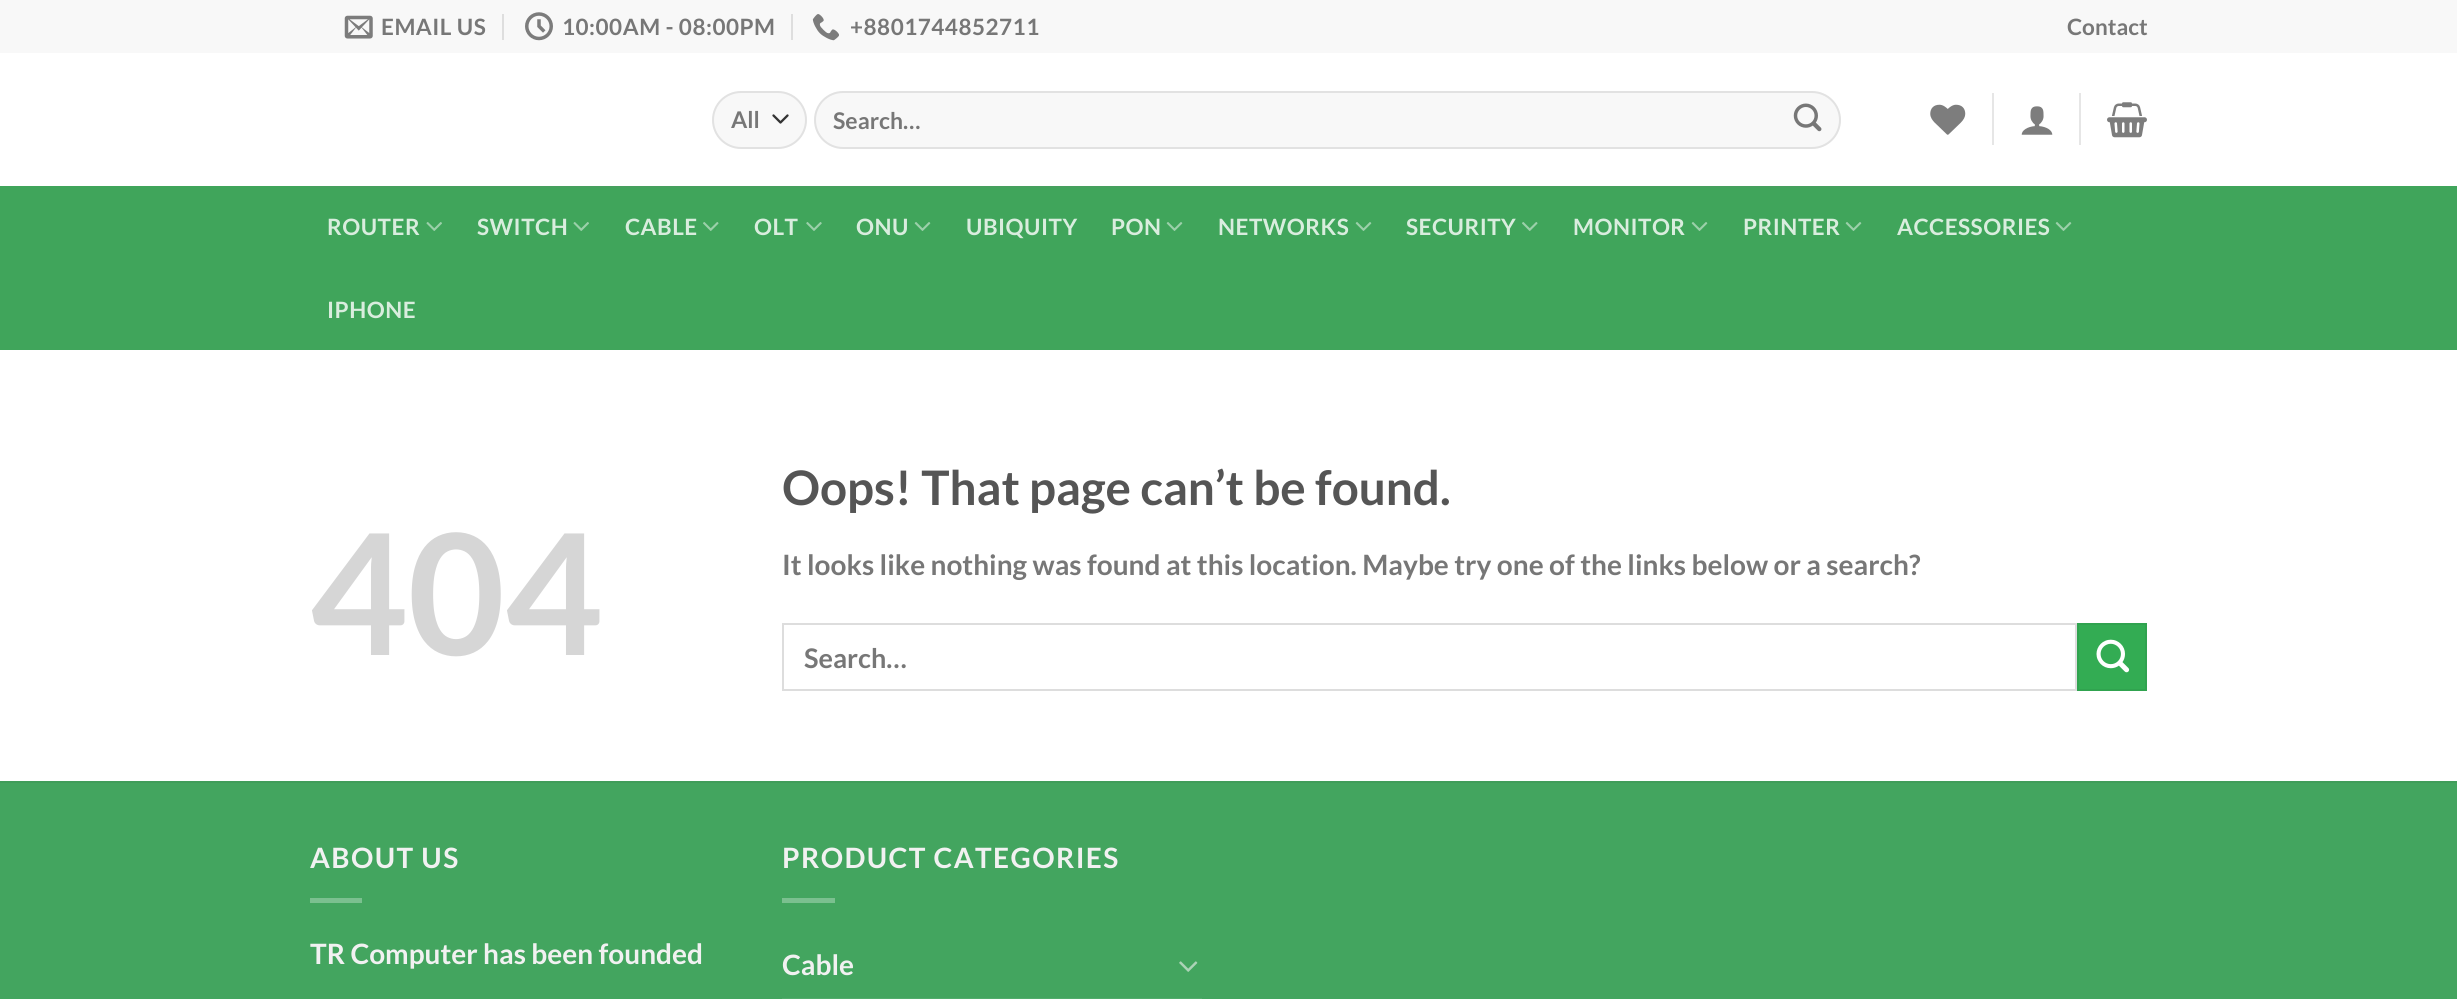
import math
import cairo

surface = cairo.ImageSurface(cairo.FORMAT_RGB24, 2457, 999)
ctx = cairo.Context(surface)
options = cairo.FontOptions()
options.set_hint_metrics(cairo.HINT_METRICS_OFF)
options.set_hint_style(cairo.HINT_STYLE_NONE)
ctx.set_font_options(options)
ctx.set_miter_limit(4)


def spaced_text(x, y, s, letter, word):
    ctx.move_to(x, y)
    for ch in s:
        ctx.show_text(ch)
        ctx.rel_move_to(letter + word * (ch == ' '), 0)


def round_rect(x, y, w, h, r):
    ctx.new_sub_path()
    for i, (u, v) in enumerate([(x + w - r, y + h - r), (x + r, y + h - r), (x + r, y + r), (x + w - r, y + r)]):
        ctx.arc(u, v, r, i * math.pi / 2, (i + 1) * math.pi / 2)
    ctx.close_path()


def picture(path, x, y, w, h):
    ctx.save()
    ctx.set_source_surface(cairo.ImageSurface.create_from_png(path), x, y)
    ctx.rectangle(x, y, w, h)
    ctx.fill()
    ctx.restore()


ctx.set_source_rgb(1, 1, 1)
ctx.paint()
ctx.set_source_rgb(0.969, 0.969, 0.969)
ctx.rectangle(0, 0, 2457, 53)
ctx.fill()
picture("img1.png", 344, 15, 29, 24)
ctx.select_font_face("Lato", cairo.FONT_SLANT_NORMAL, cairo.FONT_WEIGHT_BOLD)
ctx.set_font_size(22.5)
ctx.set_source_rgb(0.467, 0.467, 0.467)
spaced_text(381, 35, "EMAIL US", 0.5, 0)
ctx.set_source_rgb(0.871, 0.871, 0.871)
ctx.rectangle(502, 14, 2, 26)
ctx.fill()
picture("img2.png", 525, 12, 28, 29)
ctx.set_source_rgb(0.467, 0.467, 0.467)
spaced_text(562, 35, "10:00AM - 08:00PM", 0.5, 0)
ctx.set_source_rgb(0.871, 0.871, 0.871)
ctx.rectangle(791, 14, 2, 26)
ctx.fill()
picture("img3.png", 812, 14, 27, 27)
ctx.set_source_rgb(0.467, 0.467, 0.467)
spaced_text(850, 35, "+8801744852711", 0.5, 0)
ctx.move_to(2067, 35)
ctx.show_text("Contact")
ctx.set_source_rgb(0.969, 0.969, 0.969)
round_rect(712, 91, 95, 58, 29)
ctx.fill()
ctx.new_path()
ctx.move_to(773.5, 115.5)
ctx.line_to(780.5, 122.5)
ctx.line_to(787.5, 115.5)
ctx.set_source_rgb(0.2, 0.2, 0.2)
ctx.set_line_width(2.3)
ctx.set_line_cap(cairo.LINE_CAP_ROUND)
ctx.set_line_join(cairo.LINE_JOIN_ROUND)
ctx.stroke()
round_rect(713, 92, 93, 56, 28)
ctx.set_source_rgba(0, 0, 0, 0.09)
ctx.set_line_width(2)
ctx.set_line_cap(cairo.LINE_CAP_BUTT)
ctx.set_line_join(cairo.LINE_JOIN_MITER)
ctx.stroke()
ctx.set_font_size(23)
ctx.set_source_rgb(0.467, 0.467, 0.467)
ctx.move_to(731, 128)
ctx.show_text("All")
ctx.set_source_rgb(0.969, 0.969, 0.969)
round_rect(814, 91, 1027, 58, 29)
ctx.fill()
round_rect(815, 92, 1025, 56, 28)
ctx.set_source_rgba(0, 0, 0, 0.09)
ctx.stroke()
ctx.set_source_rgb(0.467, 0.467, 0.467)
ctx.move_to(833, 129)
ctx.show_text("Search…")
picture("img4.png", 1793, 103, 29, 29)
picture("img5.png", 1930, 104, 36, 31)
ctx.set_source_rgb(0.902, 0.902, 0.902)
ctx.rectangle(1992, 93, 2, 52)
ctx.fill()
picture("img6.png", 2021, 106, 32, 29)
ctx.rectangle(2079, 93, 2, 52)
ctx.fill()
picture("img7.png", 2107, 102, 40, 36)
ctx.set_source_rgb(0.251, 0.647, 0.357)
ctx.rectangle(0, 186, 2457, 164)
ctx.fill()
ctx.set_source_rgb(0.275, 0.627, 0.369)
ctx.rectangle(310, 186, 1837, 2)
ctx.fill()
ctx.set_font_size(22.5)
ctx.set_source_rgb(0.851, 0.929, 0.871)
spaced_text(327, 235, "ROUTER", 0.5, 0)
picture("img8.png", 426, 222, 16, 9)
spaced_text(477, 235, "SWITCH", 0.5, 0)
picture("img8.png", 573, 222, 16, 9)
spaced_text(625, 235, "CABLE", 0.5, 0)
picture("img9.png", 703, 222, 16, 9)
spaced_text(754, 235, "OLT", 0.5, 0)
picture("img10.png", 806, 222, 16, 9)
spaced_text(856, 235, "ONU", 0.5, 0)
picture("img11.png", 914, 222, 17, 9)
spaced_text(966, 235, "UBIQUITY", 0.5, 0)
spaced_text(1111, 235, "PON", 0.5, 0)
picture("img11.png", 1166, 222, 17, 9)
spaced_text(1218, 235, "NETWORKS", 0.5, 0)
picture("img11.png", 1355, 222, 17, 9)
spaced_text(1406, 235, "SECURITY", 0.5, 0)
picture("img9.png", 1522, 222, 16, 9)
spaced_text(1573, 235, "MONITOR", 0.5, 0)
picture("img11.png", 1691, 222, 17, 9)
spaced_text(1743, 235, "PRINTER", 0.5, 0)
picture("img11.png", 1845, 222, 17, 9)
spaced_text(1897, 235, "ACCESSORIES", 0.5, 0)
picture("img11.png", 2055, 222, 17, 9)
spaced_text(327, 318, "IPHONE", 0.5, 0)
ctx.set_font_size(168)
ctx.set_source_rgb(0.839, 0.839, 0.839)
ctx.move_to(310, 655)
ctx.show_text("404")
ctx.set_font_size(47.6)
ctx.set_source_rgb(0.333, 0.333, 0.333)
ctx.move_to(782, 505)
ctx.show_text("Oops! That page can’t be found.")
ctx.set_font_size(28)
ctx.set_source_rgb(0.467, 0.467, 0.467)
ctx.move_to(782, 575)
ctx.show_text("It looks like nothing was found at this location. Maybe try one of the links below or a search?")
ctx.rectangle(783, 624, 1293, 66)
ctx.set_source_rgb(0.867, 0.867, 0.867)
ctx.stroke()
ctx.set_font_size(27)
ctx.set_source_rgb(0.467, 0.467, 0.467)
ctx.move_to(804, 668)
ctx.show_text("Search…")
ctx.set_source_rgb(0.2, 0.675, 0.325)
ctx.rectangle(2078, 624, 68, 66)
ctx.fill_preserve()
ctx.set_source_rgb(0.188, 0.639, 0.31)
ctx.stroke()
picture("img12.png", 2096, 639, 34, 34)
ctx.set_source_rgb(0.263, 0.647, 0.373)
ctx.rectangle(0, 783, 2457, 216)
ctx.fill()
ctx.set_source_rgb(0.251, 0.616, 0.353)
ctx.rectangle(0, 781, 2457, 2)
ctx.fill()
ctx.set_font_size(28)
ctx.set_source_rgb(0.945, 0.945, 0.945)
spaced_text(310, 868, "ABOUT US", 1.4, 0)
ctx.set_source_rgb(0.482, 0.753, 0.561)
ctx.rectangle(310, 898, 52, 5)
ctx.fill()
ctx.set_source_rgb(0.945, 0.945, 0.945)
ctx.move_to(310, 964)
ctx.show_text("TR Computer has been founded")
spaced_text(782, 868, "PRODUCT CATEGORIES", 1.4, 0)
ctx.set_source_rgb(0.482, 0.753, 0.561)
ctx.rectangle(782, 898, 53, 5)
ctx.fill()
ctx.set_source_rgb(0.945, 0.945, 0.945)
ctx.move_to(782, 975)
ctx.show_text("Cable")
picture("img13.png", 1179, 961, 19, 11)
ctx.set_source_rgb(0.322, 0.675, 0.424)
ctx.rectangle(782, 998, 420, 1)
ctx.fill()
surface.write_to_png("page.png")
